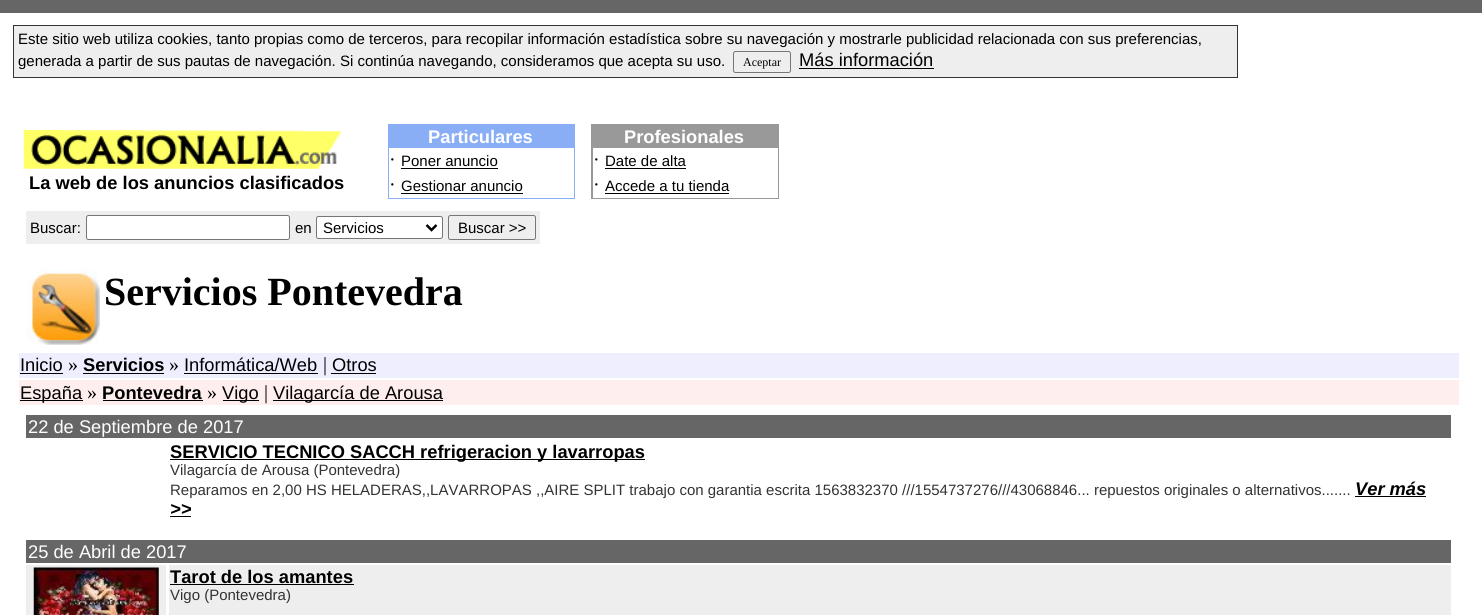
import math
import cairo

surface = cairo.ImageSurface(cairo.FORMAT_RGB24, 1482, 615)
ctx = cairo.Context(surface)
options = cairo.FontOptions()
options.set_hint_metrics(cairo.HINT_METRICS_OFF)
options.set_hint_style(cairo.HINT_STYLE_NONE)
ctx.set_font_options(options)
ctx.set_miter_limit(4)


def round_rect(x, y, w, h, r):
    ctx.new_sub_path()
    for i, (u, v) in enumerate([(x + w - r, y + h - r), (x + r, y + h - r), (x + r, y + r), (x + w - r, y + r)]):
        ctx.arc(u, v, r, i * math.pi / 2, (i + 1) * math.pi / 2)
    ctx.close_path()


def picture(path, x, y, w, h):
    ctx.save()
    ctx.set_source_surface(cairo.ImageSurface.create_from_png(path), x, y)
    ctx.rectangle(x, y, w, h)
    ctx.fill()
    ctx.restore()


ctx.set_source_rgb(1, 1, 1)
ctx.paint()
ctx.set_source_rgb(0.4, 0.4, 0.4)
ctx.rectangle(0, 0, 1482, 13)
ctx.fill()
ctx.set_source_rgb(0.933, 0.933, 0.933)
ctx.rectangle(13.5, 25.5, 1224, 52)
ctx.fill_preserve()
ctx.set_source_rgb(0.2, 0.2, 0.2)
ctx.set_line_width(1)
ctx.stroke()
ctx.select_font_face("Liberation Sans")
ctx.set_font_size(15)
ctx.set_source_rgb(0, 0, 0)
ctx.move_to(18, 44)
ctx.show_text("Este sitio web utiliza cookies, tanto propias como de terceros, para recopilar información estadística sobre su navegación y mostrarle publicidad relacionada con sus preferencias,")
ctx.move_to(18, 66)
ctx.show_text("generada a partir de sus pautas de navegación. Si continúa navegando, consideramos que acepta su uso.")
round_rect(733.5, 51.5, 57, 21, 2)
ctx.set_source_rgb(0.463, 0.463, 0.463)
ctx.stroke()
ctx.select_font_face("Liberation Serif")
ctx.set_font_size(12)
ctx.set_source_rgb(0, 0, 0)
ctx.move_to(743, 66)
ctx.show_text("Aceptar")
ctx.select_font_face("Liberation Sans")
ctx.set_font_size(18.3)
ctx.move_to(799, 66)
ctx.show_text("Más información")
ctx.rectangle(799, 68, 135, 1)
ctx.fill()
picture("img1.png", 23, 130, 319, 39)
ctx.select_font_face("Liberation Sans", cairo.FONT_SLANT_NORMAL, cairo.FONT_WEIGHT_BOLD)
ctx.move_to(29, 189)
ctx.show_text("La web de los anuncios clasificados")
ctx.set_source_rgb(0.541, 0.682, 0.961)
ctx.rectangle(388, 124, 187, 75)
ctx.fill()
ctx.set_source_rgb(1, 1, 1)
ctx.move_to(428, 143)
ctx.show_text("Particulares")
ctx.rectangle(389, 148, 185, 50)
ctx.fill()
ctx.select_font_face("Liberation Serif")
ctx.set_font_size(20)
ctx.set_source_rgb(0, 0, 0)
ctx.move_to(389, 166)
ctx.show_text("·")
ctx.select_font_face("Liberation Sans")
ctx.set_font_size(15)
ctx.move_to(401, 166)
ctx.show_text("Poner anuncio")
ctx.rectangle(401, 168, 97, 1)
ctx.fill()
ctx.select_font_face("Liberation Serif")
ctx.set_font_size(20)
ctx.move_to(389, 191)
ctx.show_text("·")
ctx.select_font_face("Liberation Sans")
ctx.set_font_size(15)
ctx.move_to(401, 191)
ctx.show_text("Gestionar anuncio")
ctx.rectangle(401, 193, 122, 1)
ctx.fill()
ctx.set_source_rgb(0.6, 0.6, 0.6)
ctx.rectangle(591, 124, 188, 75)
ctx.fill()
ctx.select_font_face("Liberation Sans", cairo.FONT_SLANT_NORMAL, cairo.FONT_WEIGHT_BOLD)
ctx.set_font_size(18.3)
ctx.set_source_rgb(1, 1, 1)
ctx.move_to(624, 143)
ctx.show_text("Profesionales")
ctx.rectangle(593, 148, 185, 50)
ctx.fill()
ctx.select_font_face("Liberation Serif")
ctx.set_font_size(20)
ctx.set_source_rgb(0, 0, 0)
ctx.move_to(593, 166)
ctx.show_text("·")
ctx.select_font_face("Liberation Sans")
ctx.set_font_size(15)
ctx.move_to(605, 166)
ctx.show_text("Date de alta")
ctx.rectangle(605, 168, 81, 1)
ctx.fill()
ctx.select_font_face("Liberation Serif")
ctx.set_font_size(20)
ctx.move_to(593, 191)
ctx.show_text("·")
ctx.select_font_face("Liberation Sans")
ctx.set_font_size(15)
ctx.move_to(605, 191)
ctx.show_text("Accede a tu tienda")
ctx.rectangle(605, 193, 124, 1)
ctx.fill()
ctx.set_source_rgb(0.933, 0.933, 0.933)
ctx.rectangle(26, 211, 514, 33)
ctx.fill()
ctx.set_source_rgb(0, 0, 0)
ctx.move_to(30, 233)
ctx.show_text("Buscar:")
ctx.set_source_rgb(1, 1, 1)
round_rect(86.5, 215.5, 203, 24, 2)
ctx.fill_preserve()
ctx.set_source_rgb(0.463, 0.463, 0.463)
ctx.stroke()
ctx.set_source_rgb(0, 0, 0)
ctx.move_to(295, 233)
ctx.show_text("en")
ctx.set_source_rgb(1, 1, 1)
round_rect(316.5, 216.5, 126, 22, 2)
ctx.fill_preserve()
ctx.set_source_rgb(0.463, 0.463, 0.463)
ctx.stroke()
ctx.new_path()
ctx.move_to(426.5, 225)
ctx.line_to(431.5, 230)
ctx.line_to(436.5, 225)
ctx.set_source_rgb(0, 0, 0)
ctx.set_line_width(2.5)
ctx.stroke()
ctx.move_to(323, 233)
ctx.show_text("Servicios")
round_rect(448.5, 215.5, 87, 24, 2)
ctx.set_source_rgb(0.463, 0.463, 0.463)
ctx.set_line_width(1)
ctx.stroke()
ctx.set_source_rgb(0, 0, 0)
ctx.move_to(458, 233)
ctx.show_text("Buscar >>")
picture("img2.png", 27, 269, 73, 76)
ctx.select_font_face("Liberation Serif", cairo.FONT_SLANT_NORMAL, cairo.FONT_WEIGHT_BOLD)
ctx.set_font_size(40)
ctx.move_to(104, 305)
ctx.show_text("Servicios Pontevedra")
ctx.set_source_rgb(0.933, 0.933, 1)
ctx.rectangle(19, 353, 1440, 25)
ctx.fill()
ctx.select_font_face("Liberation Sans")
ctx.set_font_size(18.3)
ctx.set_source_rgb(0, 0, 0)
ctx.move_to(20, 371)
ctx.show_text("Inicio")
ctx.rectangle(20, 373, 43, 1)
ctx.fill()
ctx.select_font_face("Liberation Serif")
ctx.set_font_size(20)
ctx.move_to(68, 371)
ctx.show_text("»")
ctx.select_font_face("Liberation Sans", cairo.FONT_SLANT_NORMAL, cairo.FONT_WEIGHT_BOLD)
ctx.set_font_size(18.3)
ctx.move_to(83, 371)
ctx.show_text("Servicios")
ctx.rectangle(83, 373, 81, 1)
ctx.fill()
ctx.select_font_face("Liberation Serif")
ctx.set_font_size(20)
ctx.move_to(169, 371)
ctx.show_text("»")
ctx.select_font_face("Liberation Sans")
ctx.set_font_size(18.3)
ctx.move_to(184, 371)
ctx.show_text("Informática/Web")
ctx.rectangle(184, 373, 134, 1)
ctx.fill()
ctx.select_font_face("Liberation Serif")
ctx.set_font_size(20)
ctx.move_to(323, 371)
ctx.show_text("|")
ctx.select_font_face("Liberation Sans")
ctx.set_font_size(18.3)
ctx.move_to(332, 371)
ctx.show_text("Otros")
ctx.rectangle(331, 373, 45, 1)
ctx.fill()
ctx.set_source_rgb(1, 0.933, 0.933)
ctx.rectangle(19, 380, 1440, 25)
ctx.fill()
ctx.set_source_rgb(0, 0, 0)
ctx.rectangle(20, 400, 63, 1)
ctx.fill()
ctx.move_to(20, 399)
ctx.show_text("España")
ctx.select_font_face("Liberation Serif")
ctx.set_font_size(20)
ctx.move_to(87, 399)
ctx.show_text("»")
ctx.select_font_face("Liberation Sans", cairo.FONT_SLANT_NORMAL, cairo.FONT_WEIGHT_BOLD)
ctx.set_font_size(18.3)
ctx.move_to(102, 399)
ctx.show_text("Pontevedra")
ctx.rectangle(103, 400, 100, 1)
ctx.fill()
ctx.select_font_face("Liberation Serif")
ctx.set_font_size(20)
ctx.move_to(207, 399)
ctx.show_text("»")
ctx.rectangle(223, 400, 36, 1)
ctx.fill()
ctx.select_font_face("Liberation Sans")
ctx.set_font_size(18.3)
ctx.move_to(222, 399)
ctx.show_text("Vigo")
ctx.select_font_face("Liberation Serif")
ctx.set_font_size(20)
ctx.move_to(264, 399)
ctx.show_text("|")
ctx.rectangle(273, 400, 170, 1)
ctx.fill()
ctx.select_font_face("Liberation Sans")
ctx.set_font_size(18.3)
ctx.move_to(273, 399)
ctx.show_text("Vilagarcía de Arousa")
ctx.set_source_rgb(0.4, 0.4, 0.4)
ctx.rectangle(26, 415, 1425, 23)
ctx.fill()
ctx.set_source_rgb(1, 1, 1)
ctx.move_to(28, 433)
ctx.show_text("22 de Septiembre de 2017")
ctx.set_source_rgb(0, 0, 0)
ctx.rectangle(170, 459, 475, 1)
ctx.fill()
ctx.select_font_face("Liberation Sans", cairo.FONT_SLANT_NORMAL, cairo.FONT_WEIGHT_BOLD)
ctx.move_to(170, 458)
ctx.show_text("SERVICIO TECNICO SACCH refrigeracion y lavarropas")
ctx.select_font_face("Liberation Sans")
ctx.set_font_size(15)
ctx.set_source_rgb(0.2, 0.2, 0.2)
ctx.move_to(170, 475)
ctx.show_text("Vilagarcía de Arousa (Pontevedra)")
ctx.move_to(170, 495)
ctx.show_text("Reparamos en 2,00 HS HELADERAS,,LAVARROPAS ,,AIRE SPLIT trabajo con garantia escrita 1563832370 ///1554737276///43068846... repuestos originales o alternativos.......")
ctx.set_source_rgb(0, 0, 0)
ctx.rectangle(1355, 496, 71, 1)
ctx.fill()
ctx.select_font_face("Liberation Sans", cairo.FONT_SLANT_ITALIC, cairo.FONT_WEIGHT_BOLD)
ctx.set_font_size(18.3)
ctx.move_to(1355, 495)
ctx.show_text("Ver más")
ctx.move_to(170, 515)
ctx.show_text(">>")
ctx.rectangle(170, 516, 21, 1)
ctx.fill()
ctx.set_source_rgb(0.4, 0.4, 0.4)
ctx.rectangle(26, 540, 1425, 23)
ctx.fill()
ctx.select_font_face("Liberation Sans")
ctx.set_source_rgb(1, 1, 1)
ctx.move_to(28, 558)
ctx.show_text("25 de Abril de 2017")
ctx.set_source_rgb(0.933, 0.933, 0.933)
ctx.rectangle(26, 565, 140, 50)
ctx.fill()
picture("img3.png", 33, 567, 126, 48)
ctx.rectangle(169, 565, 1282, 50)
ctx.fill()
ctx.select_font_face("Liberation Sans", cairo.FONT_SLANT_NORMAL, cairo.FONT_WEIGHT_BOLD)
ctx.set_source_rgb(0, 0, 0)
ctx.move_to(170, 583)
ctx.show_text("Tarot de los amantes")
ctx.rectangle(170, 584, 184, 1)
ctx.fill()
ctx.select_font_face("Liberation Sans")
ctx.set_font_size(15)
ctx.set_source_rgb(0.2, 0.2, 0.2)
ctx.move_to(170, 600)
ctx.show_text("Vigo (Pontevedra)")
surface.write_to_png("page.png")
